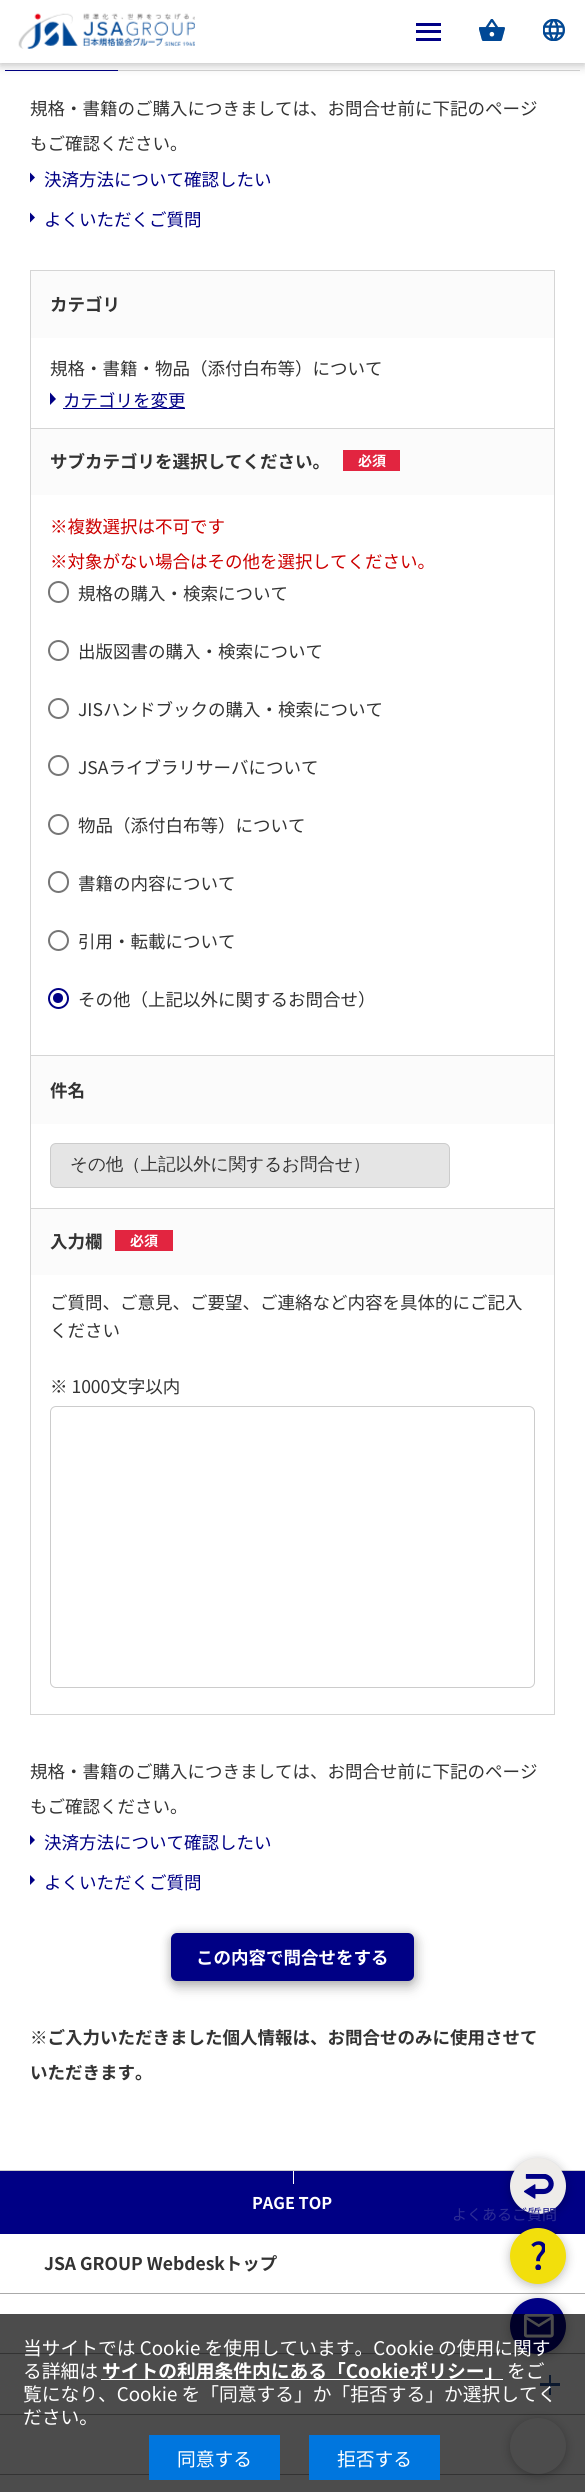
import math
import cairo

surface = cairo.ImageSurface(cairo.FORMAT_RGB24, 585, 2492)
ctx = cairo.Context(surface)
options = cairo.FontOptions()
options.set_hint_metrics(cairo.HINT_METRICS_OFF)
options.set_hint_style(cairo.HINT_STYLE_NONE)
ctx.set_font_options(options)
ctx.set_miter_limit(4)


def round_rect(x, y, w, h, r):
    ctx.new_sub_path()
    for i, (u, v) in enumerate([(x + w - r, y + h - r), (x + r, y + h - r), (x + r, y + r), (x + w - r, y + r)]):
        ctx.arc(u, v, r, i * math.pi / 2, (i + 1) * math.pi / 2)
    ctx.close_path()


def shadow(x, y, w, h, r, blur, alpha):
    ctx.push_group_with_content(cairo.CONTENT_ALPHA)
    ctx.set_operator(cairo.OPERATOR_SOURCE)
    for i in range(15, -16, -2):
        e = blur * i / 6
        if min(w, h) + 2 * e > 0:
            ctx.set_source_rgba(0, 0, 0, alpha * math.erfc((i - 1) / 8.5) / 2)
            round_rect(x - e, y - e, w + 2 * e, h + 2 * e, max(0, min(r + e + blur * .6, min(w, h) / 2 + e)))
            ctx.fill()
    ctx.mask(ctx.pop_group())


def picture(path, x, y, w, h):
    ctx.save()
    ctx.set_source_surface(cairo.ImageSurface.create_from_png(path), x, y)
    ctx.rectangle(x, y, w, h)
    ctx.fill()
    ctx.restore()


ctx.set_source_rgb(1, 1, 1)
ctx.paint()
ctx.set_source_rgb(0.835, 0.835, 0.835)
ctx.rectangle(118, 70, 462, 1)
ctx.fill()
ctx.set_source_rgb(0, 0, 0.522)
ctx.rectangle(5, 70, 113, 1)
ctx.fill()
ctx.set_source_rgb(0, 0, 0)
shadow(0, 3, 585, 62, 0, 5, 0.26)
ctx.set_source_rgb(1, 1, 1)
ctx.rectangle(0, 0, 585, 63)
ctx.fill()
picture("img1.png", 18, 13, 177, 36)
ctx.set_source_rgb(0, 0, 0.522)
ctx.rectangle(416, 23, 25, 3)
ctx.fill()
ctx.rectangle(416, 30, 25, 3)
ctx.fill()
ctx.rectangle(416, 38, 25, 3)
ctx.fill()
picture("img2.png", 479, 19, 26, 22)
picture("img3.png", 479, 19, 26, 22)
picture("img4.png", 543, 19, 22, 22)
picture("img5.png", 543, 19, 22, 22)
ctx.select_font_face("Noto Sans JP")
ctx.set_font_size(17.5)
ctx.set_source_rgb(0.2, 0.2, 0.2)
ctx.move_to(30, 115)
ctx.show_text("規格・書籍のご購入につきましては、お問合せ前に下記のページ")
ctx.move_to(30, 150)
ctx.show_text("もご確認ください。")
ctx.set_source_rgb(0, 0, 0.522)
ctx.new_path()
ctx.move_to(30, 182.5)
ctx.line_to(30, 172.5)
ctx.line_to(35, 177.5)
ctx.close_path()
ctx.fill()
ctx.move_to(44, 186)
ctx.show_text("決済方法について確認したい")
ctx.new_path()
ctx.move_to(30, 222.5)
ctx.line_to(30, 212.5)
ctx.line_to(35, 217.5)
ctx.close_path()
ctx.fill()
ctx.move_to(44, 226)
ctx.show_text("よくいただくご質問")
ctx.set_source_rgb(0.835, 0.835, 0.835)
ctx.rectangle(30, 270, 525, 1)
ctx.fill()
ctx.rectangle(554, 270, 1, 1445)
ctx.fill()
ctx.rectangle(30, 1714, 525, 1)
ctx.fill()
ctx.rectangle(30, 270, 1, 1445)
ctx.fill()
ctx.set_source_rgb(0.984, 0.984, 0.984)
ctx.rectangle(31, 271, 523, 67)
ctx.fill()
ctx.select_font_face("Noto Sans JP", cairo.FONT_SLANT_NORMAL, cairo.FONT_WEIGHT_BOLD)
ctx.set_source_rgb(0.2, 0.2, 0.2)
ctx.move_to(50, 311)
ctx.show_text("カテゴリ")
ctx.set_source_rgb(0.835, 0.835, 0.835)
ctx.rectangle(31, 428, 523, 1)
ctx.fill()
ctx.select_font_face("Noto Sans JP")
ctx.set_source_rgb(0.2, 0.2, 0.2)
ctx.move_to(50, 375)
ctx.show_text("規格・書籍・物品（添付白布等）について")
ctx.set_source_rgb(0, 0, 0.522)
ctx.rectangle(63, 408, 122, 1)
ctx.fill()
ctx.move_to(63, 407)
ctx.show_text("カテゴリを変更")
ctx.set_fill_rule(cairo.FILL_RULE_EVEN_ODD)
ctx.new_path()
ctx.move_to(56, 399)
ctx.line_to(50, 405)
ctx.line_to(50, 392.5)
ctx.close_path()
ctx.fill()
ctx.set_source_rgb(0.984, 0.984, 0.984)
ctx.rectangle(31, 429, 523, 66)
ctx.fill()
ctx.select_font_face("Noto Sans JP", cairo.FONT_SLANT_NORMAL, cairo.FONT_WEIGHT_BOLD)
ctx.set_source_rgb(0.2, 0.2, 0.2)
ctx.move_to(50, 468)
ctx.show_text("サブカテゴリを選択してください。")
ctx.set_source_rgb(0.886, 0.145, 0.251)
ctx.rectangle(343, 450, 57, 21)
ctx.fill()
ctx.set_font_size(14)
ctx.set_source_rgb(1, 1, 1)
ctx.move_to(358, 466)
ctx.show_text("必須")
ctx.set_source_rgb(0.835, 0.835, 0.835)
ctx.rectangle(31, 1055, 523, 1)
ctx.fill()
ctx.select_font_face("Noto Sans JP")
ctx.set_font_size(17.5)
ctx.set_source_rgb(0.8, 0, 0)
ctx.move_to(50, 533)
ctx.show_text("※複数選択は不可です")
ctx.move_to(50, 568)
ctx.show_text("※対象がない場合はその他を選択してください。")
round_rect(49, 582, 19, 20, 9.5)
ctx.set_source_rgb(0.463, 0.463, 0.463)
ctx.stroke()
ctx.set_source_rgb(0.2, 0.2, 0.2)
ctx.move_to(78, 600)
ctx.show_text("規格の購入・検索について")
ctx.new_path()
ctx.arc(58.5, 650.5, 9.5, 0, 2 * math.pi)
ctx.set_source_rgb(0.463, 0.463, 0.463)
ctx.stroke()
ctx.set_source_rgb(0.2, 0.2, 0.2)
ctx.move_to(78, 658)
ctx.show_text("出版図書の購入・検索について")
ctx.new_path()
ctx.arc(58.5, 708.5, 9.5, 0, 2 * math.pi)
ctx.set_source_rgb(0.463, 0.463, 0.463)
ctx.stroke()
ctx.set_source_rgb(0.2, 0.2, 0.2)
ctx.move_to(78, 716)
ctx.show_text("JISハンドブックの購入・検索について")
ctx.new_path()
ctx.arc(58.5, 765.5, 9.5, 0, 2 * math.pi)
ctx.set_source_rgb(0.463, 0.463, 0.463)
ctx.stroke()
ctx.set_source_rgb(0.2, 0.2, 0.2)
ctx.move_to(78, 774)
ctx.show_text("JSAライブラリサーバについて")
ctx.new_path()
ctx.arc(58.5, 824.5, 9.5, 0, 2 * math.pi)
ctx.set_source_rgb(0.463, 0.463, 0.463)
ctx.stroke()
ctx.set_source_rgb(0.2, 0.2, 0.2)
ctx.move_to(78, 832)
ctx.show_text("物品（添付白布等）について")
round_rect(49, 872, 19, 20, 9.5)
ctx.set_source_rgb(0.463, 0.463, 0.463)
ctx.stroke()
ctx.set_source_rgb(0.2, 0.2, 0.2)
ctx.move_to(78, 890)
ctx.show_text("書籍の内容について")
ctx.new_path()
ctx.arc(58.5, 940.5, 9.5, 0, 2 * math.pi)
ctx.set_source_rgb(0.463, 0.463, 0.463)
ctx.stroke()
ctx.set_source_rgb(0.2, 0.2, 0.2)
ctx.move_to(78, 948)
ctx.show_text("引用・転載について")
ctx.new_path()
ctx.arc(58.5, 998.5, 9.5, 0, 2 * math.pi)
ctx.set_source_rgb(0, 0, 0.522)
ctx.stroke()
ctx.arc(58, 998, 5, 0, 2 * math.pi)
ctx.fill()
ctx.set_source_rgb(0.2, 0.2, 0.2)
ctx.move_to(78, 1006)
ctx.show_text("その他（上記以外に関するお問合せ）")
ctx.set_source_rgb(0.984, 0.984, 0.984)
ctx.rectangle(31, 1056, 523, 68)
ctx.fill()
ctx.select_font_face("Noto Sans JP", cairo.FONT_SLANT_NORMAL, cairo.FONT_WEIGHT_BOLD)
ctx.set_source_rgb(0.2, 0.2, 0.2)
ctx.move_to(50, 1097)
ctx.show_text("件名")
ctx.set_source_rgb(0.835, 0.835, 0.835)
ctx.rectangle(31, 1208, 523, 1)
ctx.fill()
ctx.set_source_rgb(0.898, 0.898, 0.898)
round_rect(50.5, 1143.5, 399, 44, 5.5)
ctx.fill_preserve()
ctx.set_source_rgb(0.8, 0.8, 0.8)
ctx.set_line_width(1)
ctx.stroke()
ctx.select_font_face("WenQuanYi Zen Hei Medium")
ctx.set_source_rgb(0.2, 0.2, 0.2)
ctx.move_to(70, 1170)
ctx.show_text("その他（上記以外に関するお問合せ）")
ctx.set_source_rgb(0.984, 0.984, 0.984)
ctx.rectangle(31, 1209, 523, 66)
ctx.fill()
ctx.select_font_face("Noto Sans JP", cairo.FONT_SLANT_NORMAL, cairo.FONT_WEIGHT_BOLD)
ctx.set_source_rgb(0.2, 0.2, 0.2)
ctx.move_to(50, 1248)
ctx.show_text("入力欄")
ctx.set_source_rgb(0.886, 0.145, 0.251)
ctx.rectangle(115, 1230, 58, 21)
ctx.fill()
ctx.set_font_size(14)
ctx.set_source_rgb(1, 1, 1)
ctx.move_to(130, 1246)
ctx.show_text("必須")
ctx.select_font_face("Noto Sans JP")
ctx.set_font_size(17.5)
ctx.set_source_rgb(0.2, 0.2, 0.2)
ctx.move_to(50, 1309)
ctx.show_text("ご質問、ご意見、ご要望、ご連絡など内容を具体的にご記入")
ctx.move_to(50, 1337)
ctx.show_text("ください")
ctx.move_to(50, 1393)
ctx.show_text("※ 1000文字以内")
round_rect(50.5, 1406.5, 484, 281, 5.5)
ctx.set_source_rgb(0.8, 0.8, 0.8)
ctx.stroke()
ctx.set_source_rgb(0.2, 0.2, 0.2)
ctx.move_to(30, 1778)
ctx.show_text("規格・書籍のご購入につきましては、お問合せ前に下記のページ")
ctx.move_to(30, 1813)
ctx.show_text("もご確認ください。")
ctx.set_source_rgb(0, 0, 0.522)
ctx.set_fill_rule(cairo.FILL_RULE_WINDING)
ctx.new_path()
ctx.move_to(30, 1845)
ctx.line_to(30, 1835)
ctx.line_to(35, 1840)
ctx.close_path()
ctx.fill()
ctx.move_to(44, 1849)
ctx.show_text("決済方法について確認したい")
ctx.new_path()
ctx.move_to(30, 1885)
ctx.line_to(30, 1875)
ctx.line_to(35, 1880)
ctx.close_path()
ctx.fill()
ctx.move_to(44, 1889)
ctx.show_text("よくいただくご質問")
ctx.set_source_rgb(0, 0, 0)
shadow(171, 1935, 243, 49, 6, 5, 0.26)
shadow(171, 1935, 248, 55, 9, 6, 0.11)
ctx.set_source_rgb(0, 0, 0.522)
round_rect(171, 1933, 243, 48, 6)
ctx.fill()
ctx.select_font_face("Noto Sans JP", cairo.FONT_SLANT_NORMAL, cairo.FONT_WEIGHT_BOLD)
ctx.set_source_rgb(1, 1, 1)
ctx.move_to(196, 1964)
ctx.show_text("この内容で問合せをする")
ctx.set_source_rgb(0.2, 0.2, 0.2)
ctx.move_to(30, 2044)
ctx.show_text("※ご入力いただきました個人情報は、お問合せのみに使用させて")
ctx.move_to(30, 2079)
ctx.show_text("いただきます。")
ctx.set_source_rgb(0.8, 0.8, 0.8)
ctx.rectangle(0, 2170, 585, 1)
ctx.fill()
ctx.set_source_rgb(0, 0, 0.522)
ctx.rectangle(0, 2171, 585, 63)
ctx.fill()
ctx.set_source_rgb(1, 1, 1)
ctx.rectangle(293, 2171, 1, 13)
ctx.fill()
ctx.set_font_size(16.25)
ctx.move_to(252, 2209)
ctx.show_text("PAGE TOP")
ctx.set_source_rgb(0.667, 0.667, 0.667)
ctx.rectangle(0, 2293, 585, 1)
ctx.fill()
ctx.set_font_size(17.5)
ctx.set_source_rgb(0.2, 0.2, 0.2)
ctx.move_to(44, 2270)
ctx.show_text("JSA GROUP Webdeskトップ")
ctx.set_source_rgb(0.667, 0.667, 0.667)
ctx.rectangle(0, 2353, 585, 1)
ctx.fill()
ctx.rectangle(0, 2414, 585, 1)
ctx.fill()
ctx.set_source_rgb(0.161, 0.325, 0.608)
ctx.rectangle(549, 2375, 2, 20)
ctx.fill()
ctx.rectangle(540, 2383, 20, 3)
ctx.fill()
ctx.set_source_rgb(0.667, 0.667, 0.667)
ctx.rectangle(0, 2474, 585, 1)
ctx.fill()
ctx.set_source_rgb(0, 0, 0)
shadow(510, 2160, 56, 56, 28, 5, 0.26)
ctx.set_source_rgb(0.933, 0.925, 0.914)
ctx.arc(538, 2186, 28, 0, 2 * math.pi)
ctx.fill()
picture("img6.png", 524, 2174, 30, 25)
ctx.set_source_rgb(0, 0, 0)
shadow(510, 2230, 56, 56, 28, 5, 0.26)
ctx.set_source_rgb(0.949, 0.875, 0.047)
ctx.arc(538, 2256, 28, 0, 2 * math.pi)
ctx.fill()
ctx.select_font_face("Noto Sans JP")
ctx.set_font_size(15)
ctx.set_source_rgb(0.176, 0.176, 0.584)
ctx.move_to(452, 2220)
ctx.show_text("よくあるご質問")
picture("img7.png", 531, 2241, 14, 29)
ctx.set_source_rgb(0, 0, 0)
shadow(510, 2300, 56, 56, 28, 5, 0.26)
ctx.set_source_rgb(0, 0, 0.522)
ctx.arc(538, 2326, 28, 0, 2 * math.pi)
ctx.fill()
picture("img8.png", 524, 2314, 30, 24)
ctx.set_source_rgb(0, 0, 0)
shadow(510, 2420, 56, 56, 28, 5, 0.26)
ctx.set_source_rgb(1, 1, 1)
ctx.arc(538, 2446, 28, 0, 2 * math.pi)
ctx.fill()
ctx.set_source_rgba(0, 0, 0, 0.7)
ctx.rectangle(0, 2314, 585, 178)
ctx.fill()
ctx.set_font_size(18.75)
ctx.set_source_rgb(1, 1, 1)
ctx.move_to(23, 2355)
ctx.show_text("当サイトでは Cookie を使用しています。Cookie の使用に関す")
ctx.move_to(23, 2378)
ctx.show_text("る詳細は")
ctx.rectangle(101, 2379, 402, 1)
ctx.fill()
ctx.select_font_face("Noto Sans JP", cairo.FONT_SLANT_NORMAL, cairo.FONT_WEIGHT_BOLD)
ctx.move_to(102, 2378)
ctx.show_text("サイトの利用条件内にある「Cookieポリシー」")
ctx.select_font_face("Noto Sans JP")
ctx.move_to(507, 2378)
ctx.show_text("をご")
ctx.move_to(23, 2401)
ctx.show_text("覧になり、Cookie を「同意する」か「拒否する」か選択してく")
ctx.move_to(23, 2424)
ctx.show_text("ださい。")
ctx.set_source_rgb(0, 0.463, 0.871)
ctx.rectangle(149, 2435, 131, 45)
ctx.fill()
ctx.set_source_rgb(1, 1, 1)
ctx.move_to(177, 2466)
ctx.show_text("同意する")
ctx.set_source_rgb(0, 0.463, 0.871)
ctx.rectangle(309, 2435, 131, 45)
ctx.fill()
ctx.set_source_rgb(1, 1, 1)
ctx.move_to(337, 2466)
ctx.show_text("拒否する")
surface.write_to_png("page.png")
